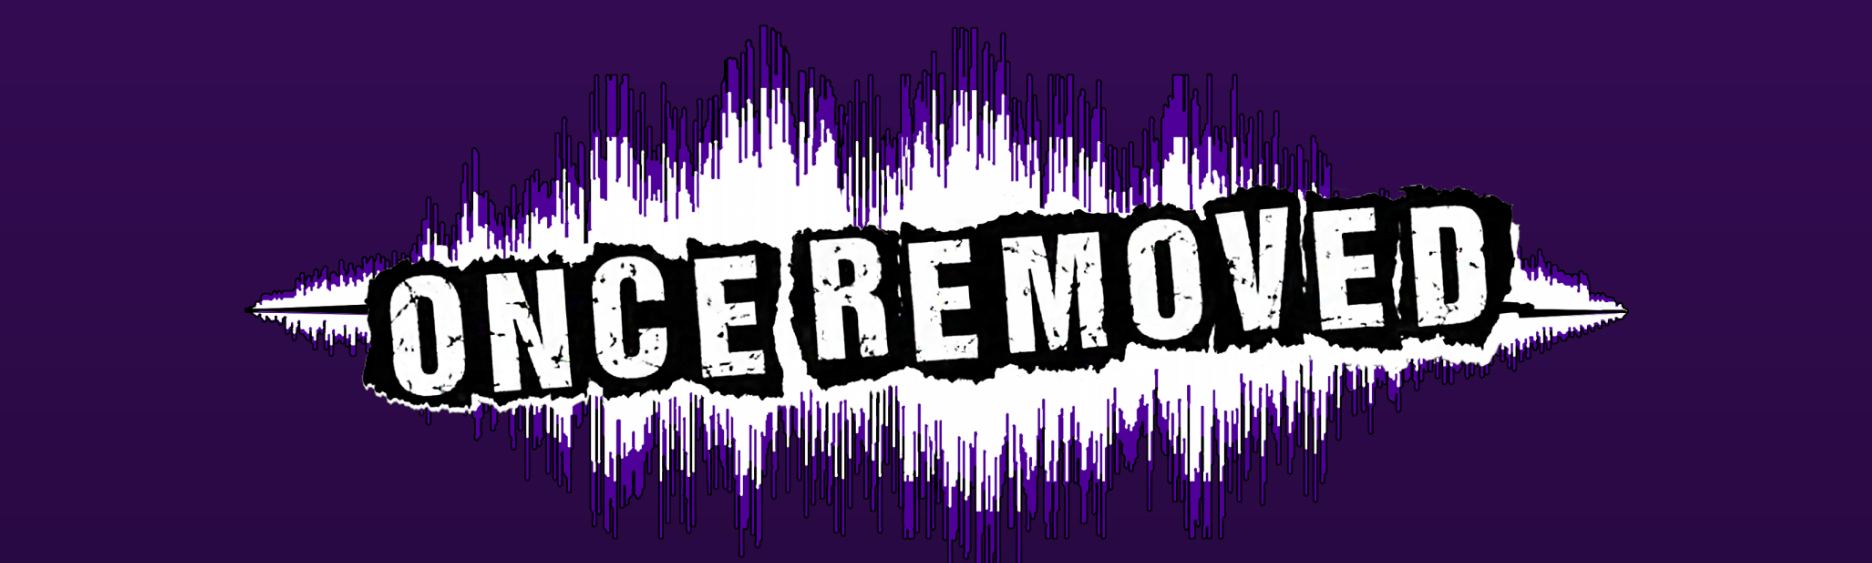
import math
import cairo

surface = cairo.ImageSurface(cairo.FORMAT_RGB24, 1872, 563)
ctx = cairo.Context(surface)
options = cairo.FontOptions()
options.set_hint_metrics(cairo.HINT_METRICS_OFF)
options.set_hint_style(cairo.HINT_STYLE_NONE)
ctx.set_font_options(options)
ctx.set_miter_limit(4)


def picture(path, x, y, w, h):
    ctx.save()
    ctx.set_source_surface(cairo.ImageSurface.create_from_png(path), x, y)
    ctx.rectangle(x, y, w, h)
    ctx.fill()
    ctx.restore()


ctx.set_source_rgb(1, 1, 1)
ctx.paint()
gradient = cairo.LinearGradient(936, 0, 936, 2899)
gradient.add_color_stop_rgba(0, 0.2, 0.043, 0.322, 1)
gradient.add_color_stop_rgba(1, 0, 0, 0, 1)
ctx.set_source(gradient)
ctx.rectangle(0, 0, 1872, 563)
ctx.fill()
picture("img1.png", 244, 24, 1385, 539)
surface.write_to_png("page.png")
